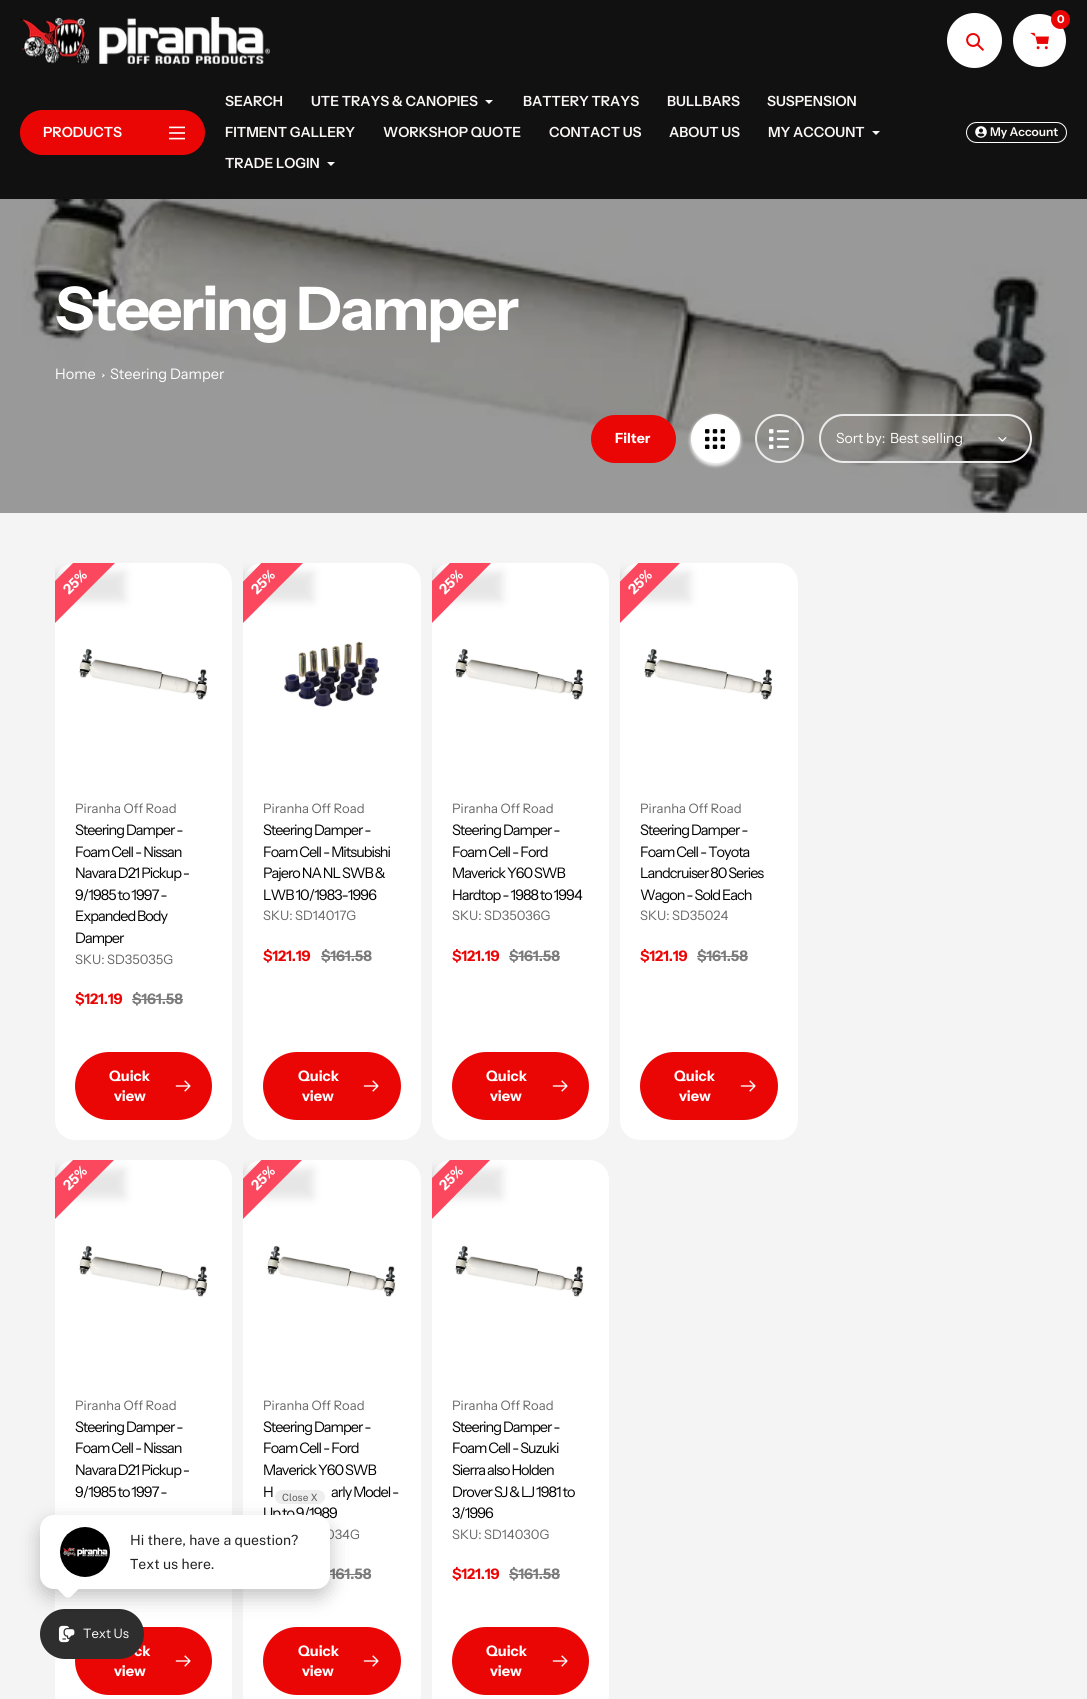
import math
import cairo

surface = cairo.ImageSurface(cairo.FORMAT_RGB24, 1087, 1699)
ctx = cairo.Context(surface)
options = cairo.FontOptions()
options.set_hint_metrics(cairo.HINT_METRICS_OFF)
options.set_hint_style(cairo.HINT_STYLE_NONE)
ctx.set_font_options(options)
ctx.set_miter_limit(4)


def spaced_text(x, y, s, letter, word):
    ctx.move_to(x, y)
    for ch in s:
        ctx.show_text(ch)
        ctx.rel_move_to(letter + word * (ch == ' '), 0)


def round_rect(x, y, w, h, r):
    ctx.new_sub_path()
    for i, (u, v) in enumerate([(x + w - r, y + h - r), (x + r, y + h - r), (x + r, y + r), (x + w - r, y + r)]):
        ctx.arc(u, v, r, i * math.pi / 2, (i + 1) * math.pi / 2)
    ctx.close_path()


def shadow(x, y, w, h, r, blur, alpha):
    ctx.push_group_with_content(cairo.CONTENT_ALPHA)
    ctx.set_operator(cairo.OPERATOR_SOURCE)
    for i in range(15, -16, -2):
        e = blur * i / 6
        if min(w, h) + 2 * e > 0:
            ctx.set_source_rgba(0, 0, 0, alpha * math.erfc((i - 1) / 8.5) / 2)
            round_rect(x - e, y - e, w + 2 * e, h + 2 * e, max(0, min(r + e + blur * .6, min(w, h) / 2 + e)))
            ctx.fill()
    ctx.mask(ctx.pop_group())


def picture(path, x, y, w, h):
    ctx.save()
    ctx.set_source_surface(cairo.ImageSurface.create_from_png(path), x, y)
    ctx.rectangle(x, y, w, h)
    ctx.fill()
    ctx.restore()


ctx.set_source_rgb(0.957, 0.957, 0.957)
ctx.paint()
ctx.set_source_rgb(0.067, 0.067, 0.067)
ctx.rectangle(0, 0, 1087, 199)
ctx.fill()
picture("img1.png", 20, 17, 250, 47)
ctx.set_source_rgb(1, 1, 1)
ctx.arc(974.5, 40.5, 27.5, 0, 2 * math.pi)
ctx.fill()
picture("img2.png", 966, 33, 18, 18)
ctx.arc(1039.5, 40.5, 26.5, 0, 2 * math.pi)
ctx.fill()
ctx.set_source_rgb(0.918, 0.024, 0.024)
ctx.arc(1060.5, 19.5, 9.5, 0, 2 * math.pi)
ctx.fill()
ctx.select_font_face("Instrument Sans", cairo.FONT_SLANT_NORMAL, cairo.FONT_WEIGHT_BOLD)
ctx.set_font_size(11)
ctx.set_source_rgb(1, 1, 1)
ctx.move_to(1057, 23)
ctx.show_text("0")
picture("img3.png", 1030, 32, 19, 18)
ctx.set_source_rgb(0.918, 0.024, 0.024)
round_rect(20, 110, 185, 45, 22.5)
ctx.fill()
ctx.select_font_face("Instrument Sans SemiBold")
ctx.set_font_size(14)
ctx.set_source_rgb(1, 1, 1)
ctx.move_to(43, 137)
ctx.show_text("PRODUCTS")
picture("img4.png", 169, 126, 16, 14)
ctx.set_source_rgb(0.988, 0.965, 0.965)
ctx.move_to(225, 106)
ctx.show_text("SEARCH")
ctx.move_to(311, 106)
ctx.show_text("UTE TRAYS & CANOPIES")
ctx.new_path()
ctx.move_to(493, 100)
ctx.line_to(489, 104)
ctx.line_to(485, 100)
ctx.fill()
ctx.move_to(523, 106)
ctx.show_text("BATTERY TRAYS")
ctx.move_to(667, 106)
ctx.show_text("BULLBARS")
ctx.move_to(767, 106)
ctx.show_text("SUSPENSION")
ctx.move_to(225, 137)
ctx.show_text("FITMENT GALLERY")
ctx.move_to(383, 137)
ctx.show_text("WORKSHOP QUOTE")
ctx.move_to(549, 137)
ctx.show_text("CONTACT US")
ctx.move_to(669, 137)
ctx.show_text("ABOUT US")
ctx.move_to(768, 137)
ctx.show_text("MY ACCOUNT")
ctx.new_path()
ctx.move_to(880, 131)
ctx.line_to(876, 135)
ctx.line_to(872, 131)
ctx.fill()
ctx.move_to(225, 168)
ctx.show_text("TRADE LOGIN")
ctx.new_path()
ctx.move_to(335, 162)
ctx.line_to(331, 166)
ctx.line_to(327, 162)
ctx.fill()
round_rect(966.5, 122.5, 100, 20, 10)
ctx.set_source_rgb(1, 1, 1)
ctx.set_line_width(1)
ctx.stroke()
picture("img5.png", 975, 126, 12, 12)
ctx.set_font_size(12)
ctx.set_source_rgb(0.988, 0.965, 0.965)
ctx.move_to(990, 136)
ctx.show_text("My Account")
picture("img6.png", 0, 199, 1087, 314)
ctx.select_font_face("Instrument Sans", cairo.FONT_SLANT_NORMAL, cairo.FONT_WEIGHT_BOLD)
ctx.set_font_size(60)
ctx.set_source_rgb(1, 1, 1)
spaced_text(55, 330, "Steering Damper", -2, 0)
ctx.select_font_face("Instrument Sans")
ctx.set_font_size(14.5)
ctx.move_to(55, 379)
ctx.show_text("Home")
ctx.new_path()
ctx.move_to(102.5, 373.5)
ctx.line_to(104.5, 375.5)
ctx.line_to(104, 376)
ctx.line_to(102, 374)
ctx.close_path()
ctx.fill()
ctx.new_path()
ctx.move_to(104, 374.5)
ctx.line_to(104.5, 375.5)
ctx.line_to(102.5, 377.5)
ctx.line_to(102, 376.5)
ctx.close_path()
ctx.fill()
ctx.move_to(110, 379)
ctx.show_text("Steering Damper")
ctx.set_source_rgb(0.918, 0.024, 0.024)
round_rect(591, 415, 85, 48, 24)
ctx.fill()
ctx.select_font_face("Instrument Sans", cairo.FONT_SLANT_NORMAL, cairo.FONT_WEIGHT_BOLD)
ctx.set_font_size(14)
ctx.set_source_rgb(1, 1, 1)
ctx.move_to(615, 443)
ctx.show_text("Filter")
ctx.set_source_rgb(0.922, 0.922, 0.922)
shadow(690, 415, 51, 51, 25.5, 1.5, 1)
ctx.set_source_rgb(1, 1, 1)
ctx.arc(715.5, 438.5, 24.5, 0, 2 * math.pi)
ctx.fill()
picture("img7.png", 705, 429, 20, 20)
ctx.arc(779.5, 438.5, 23.5, 0, 2 * math.pi)
ctx.set_source_rgb(0.922, 0.922, 0.922)
ctx.set_line_width(2)
ctx.stroke()
picture("img8.png", 769, 429, 20, 20)
round_rect(820, 415, 211, 47, 23.5)
ctx.stroke()
ctx.select_font_face("Instrument Sans")
ctx.set_source_rgb(1, 1, 1)
ctx.move_to(836, 443)
ctx.show_text("Sort by:")
ctx.move_to(890, 443)
ctx.show_text("Best selling")
picture("img9.png", 998, 437, 9, 5)
round_rect(55, 563, 177, 577, 20)
ctx.fill()
ctx.save()
ctx.rectangle(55, 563, 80, 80)
ctx.clip()
ctx.set_source_rgb(0, 0, 0)
shadow(25, 572, 100, 29, 0, 5, 0.1)
ctx.restore()
ctx.save()
ctx.rectangle(55, 563, 80, 80)
ctx.clip()
ctx.set_source_rgb(0.984, 0.282, 0.369)
ctx.new_path()
ctx.move_to(29, 607)
ctx.line_to(100, 536)
ctx.line_to(121, 557)
ctx.line_to(50, 628)
ctx.close_path()
ctx.fill()
ctx.restore()
ctx.select_font_face("Instrument Sans", cairo.FONT_SLANT_NORMAL, cairo.FONT_WEIGHT_BOLD)
ctx.save()
ctx.translate(69, 595)
ctx.rotate(-45 * math.pi / 180)
ctx.move_to(0, 0)
ctx.show_text("25%")
ctx.restore()
picture("img10.png", 79, 648, 129, 52)
ctx.select_font_face("Instrument Sans")
ctx.set_font_size(13)
ctx.set_source_rgb(0.4, 0.4, 0.4)
ctx.move_to(75, 813)
ctx.show_text("Piranha Off Road")
ctx.set_font_size(14.5)
ctx.set_source_rgb(0, 0, 0)
spaced_text(75, 835, "Steering Damper -", -1, 0)
spaced_text(75, 857, "Foam Cell - Nissan", -1, 0)
spaced_text(75, 878, "Navara D21 Pickup -", -1, 0)
spaced_text(75, 900, "9/1985 to 1997 -", -1, 0)
spaced_text(75, 921, "Expanded Body", -1, 0)
spaced_text(75, 943, "Damper", -1, 0)
ctx.set_font_size(13)
ctx.set_source_rgb(0.4, 0.4, 0.4)
ctx.move_to(75, 964)
ctx.show_text("SKU: SD35035G")
ctx.select_font_face("Instrument Sans", cairo.FONT_SLANT_NORMAL, cairo.FONT_WEIGHT_BOLD)
ctx.set_font_size(14.5)
ctx.set_source_rgb(0.918, 0.024, 0.024)
ctx.move_to(75, 1004)
ctx.show_text("$121.19")
ctx.set_source_rgb(0.482, 0.482, 0.482)
ctx.move_to(132, 1004)
ctx.show_text("$161.58")
ctx.rectangle(132, 999, 51, 1)
ctx.fill()
ctx.set_source_rgb(0.918, 0.024, 0.024)
round_rect(75, 1052, 137, 68, 34)
ctx.fill()
ctx.set_source_rgb(1, 1, 1)
ctx.move_to(109, 1081)
ctx.show_text("Quick")
ctx.move_to(114, 1101)
ctx.show_text("view")
picture("img11.png", 175, 1080, 16, 12)
round_rect(243, 563, 178, 577, 20)
ctx.fill()
ctx.save()
ctx.rectangle(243, 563, 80, 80)
ctx.clip()
ctx.set_source_rgb(0, 0, 0)
shadow(213, 572, 100, 29, 0, 5, 0.1)
ctx.restore()
ctx.save()
ctx.rectangle(243, 563, 80, 80)
ctx.clip()
ctx.set_source_rgb(0.984, 0.282, 0.369)
ctx.new_path()
ctx.move_to(218, 607)
ctx.line_to(288, 536)
ctx.line_to(309, 557)
ctx.line_to(238, 628)
ctx.close_path()
ctx.fill()
ctx.restore()
ctx.set_font_size(14)
ctx.save()
ctx.translate(257, 595)
ctx.rotate(-45 * math.pi / 180)
ctx.move_to(0, 0)
ctx.show_text("25%")
ctx.restore()
picture("img12.png", 284, 641, 96, 67)
ctx.select_font_face("Instrument Sans")
ctx.set_font_size(13)
ctx.set_source_rgb(0.4, 0.4, 0.4)
ctx.move_to(263, 813)
ctx.show_text("Piranha Off Road")
ctx.set_font_size(14.5)
ctx.set_source_rgb(0, 0, 0)
spaced_text(263, 835, "Steering Damper -", -1, 0)
spaced_text(263, 857, "Foam Cell - Mitsubishi", -1, 0)
spaced_text(263, 878, "Pajero NA NL SWB &", -1, 0)
spaced_text(263, 900, "LWB 10/1983-1996", -1, 0)
ctx.set_font_size(13)
ctx.set_source_rgb(0.4, 0.4, 0.4)
ctx.move_to(263, 920)
ctx.show_text("SKU: SD14017G")
ctx.select_font_face("Instrument Sans", cairo.FONT_SLANT_NORMAL, cairo.FONT_WEIGHT_BOLD)
ctx.set_font_size(14.5)
ctx.set_source_rgb(0.918, 0.024, 0.024)
ctx.move_to(263, 961)
ctx.show_text("$121.19")
ctx.set_source_rgb(0.482, 0.482, 0.482)
ctx.move_to(321, 961)
ctx.show_text("$161.58")
ctx.rectangle(321, 956, 50, 1)
ctx.fill()
ctx.set_source_rgb(0.918, 0.024, 0.024)
round_rect(263, 1052, 138, 68, 34)
ctx.fill()
ctx.set_source_rgb(1, 1, 1)
ctx.move_to(298, 1081)
ctx.show_text("Quick")
ctx.move_to(302, 1101)
ctx.show_text("view")
picture("img11.png", 363, 1080, 16, 12)
round_rect(432, 563, 177, 577, 20)
ctx.fill()
ctx.save()
ctx.rectangle(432, 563, 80, 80)
ctx.clip()
ctx.set_source_rgb(0, 0, 0)
shadow(402, 572, 100, 29, 0, 5, 0.1)
ctx.restore()
ctx.save()
ctx.rectangle(432, 563, 80, 80)
ctx.clip()
ctx.set_source_rgb(0.984, 0.282, 0.369)
ctx.new_path()
ctx.move_to(406, 607)
ctx.line_to(477, 536)
ctx.line_to(497, 557)
ctx.line_to(427, 628)
ctx.close_path()
ctx.fill()
ctx.restore()
ctx.set_font_size(14)
ctx.save()
ctx.translate(445, 595)
ctx.rotate(-45 * math.pi / 180)
ctx.move_to(0, 0)
ctx.show_text("25%")
ctx.restore()
picture("img10.png", 455, 648, 129, 52)
ctx.select_font_face("Instrument Sans")
ctx.set_font_size(13)
ctx.set_source_rgb(0.4, 0.4, 0.4)
ctx.move_to(452, 813)
ctx.show_text("Piranha Off Road")
ctx.set_font_size(14.5)
ctx.set_source_rgb(0, 0, 0)
spaced_text(452, 835, "Steering Damper -", -1, 0)
spaced_text(452, 857, "Foam Cell - Ford", -1, 0)
spaced_text(452, 878, "Maverick Y60 SWB", -1, 0)
spaced_text(452, 900, "Hardtop - 1988 to 1994", -1, 0)
ctx.set_font_size(13)
ctx.set_source_rgb(0.4, 0.4, 0.4)
ctx.move_to(452, 920)
ctx.show_text("SKU: SD35036G")
ctx.select_font_face("Instrument Sans", cairo.FONT_SLANT_NORMAL, cairo.FONT_WEIGHT_BOLD)
ctx.set_font_size(14.5)
ctx.set_source_rgb(0.918, 0.024, 0.024)
ctx.move_to(452, 961)
ctx.show_text("$121.19")
ctx.set_source_rgb(0.482, 0.482, 0.482)
ctx.move_to(509, 961)
ctx.show_text("$161.58")
ctx.rectangle(509, 956, 51, 1)
ctx.fill()
ctx.set_source_rgb(0.918, 0.024, 0.024)
round_rect(452, 1052, 137, 68, 34)
ctx.fill()
ctx.set_source_rgb(1, 1, 1)
ctx.move_to(486, 1081)
ctx.show_text("Quick")
ctx.move_to(490, 1101)
ctx.show_text("view")
picture("img11.png", 552, 1080, 16, 12)
round_rect(620, 563, 178, 577, 20)
ctx.fill()
ctx.save()
ctx.rectangle(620, 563, 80, 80)
ctx.clip()
ctx.set_source_rgb(0, 0, 0)
shadow(590, 572, 100, 29, 0, 5, 0.1)
ctx.restore()
ctx.save()
ctx.rectangle(620, 563, 80, 80)
ctx.clip()
ctx.set_source_rgb(0.984, 0.282, 0.369)
ctx.new_path()
ctx.move_to(595, 607)
ctx.line_to(665, 536)
ctx.line_to(686, 557)
ctx.line_to(615, 628)
ctx.close_path()
ctx.fill()
ctx.restore()
ctx.set_font_size(14)
ctx.save()
ctx.translate(634, 595)
ctx.rotate(-45 * math.pi / 180)
ctx.move_to(0, 0)
ctx.show_text("25%")
ctx.restore()
picture("img10.png", 644, 648, 129, 52)
ctx.select_font_face("Instrument Sans")
ctx.set_font_size(13)
ctx.set_source_rgb(0.4, 0.4, 0.4)
ctx.move_to(640, 813)
ctx.show_text("Piranha Off Road")
ctx.set_font_size(14.5)
ctx.set_source_rgb(0, 0, 0)
spaced_text(640, 835, "Steering Damper -", -1, 0)
spaced_text(640, 857, "Foam Cell - Toyota", -1, 0)
spaced_text(640, 878, "Landcruiser 80 Series", -1, 0)
spaced_text(640, 900, "Wagon - Sold Each", -1, 0)
ctx.set_font_size(13)
ctx.set_source_rgb(0.4, 0.4, 0.4)
ctx.move_to(640, 920)
ctx.show_text("SKU: SD35024")
ctx.select_font_face("Instrument Sans", cairo.FONT_SLANT_NORMAL, cairo.FONT_WEIGHT_BOLD)
ctx.set_font_size(14.5)
ctx.set_source_rgb(0.918, 0.024, 0.024)
ctx.move_to(640, 961)
ctx.show_text("$121.19")
ctx.set_source_rgb(0.482, 0.482, 0.482)
ctx.move_to(697, 961)
ctx.show_text("$161.58")
ctx.rectangle(697, 956, 51, 1)
ctx.fill()
ctx.set_source_rgb(0.918, 0.024, 0.024)
round_rect(640, 1052, 138, 68, 34)
ctx.fill()
ctx.set_source_rgb(1, 1, 1)
ctx.move_to(674, 1081)
ctx.show_text("Quick")
ctx.move_to(679, 1101)
ctx.show_text("view")
picture("img11.png", 740, 1080, 16, 12)
round_rect(55, 1160, 177, 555, 20)
ctx.fill()
ctx.save()
ctx.rectangle(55, 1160, 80, 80)
ctx.clip()
ctx.set_source_rgb(0, 0, 0)
shadow(25, 1169, 100, 29, 0, 5, 0.1)
ctx.restore()
ctx.save()
ctx.rectangle(55, 1160, 80, 80)
ctx.clip()
ctx.set_source_rgb(0.984, 0.282, 0.369)
ctx.new_path()
ctx.move_to(29, 1204)
ctx.line_to(100, 1133)
ctx.line_to(121, 1153)
ctx.line_to(50, 1224)
ctx.close_path()
ctx.fill()
ctx.restore()
ctx.set_font_size(14)
ctx.save()
ctx.translate(69, 1191)
ctx.rotate(-45 * math.pi / 180)
ctx.move_to(0, 0)
ctx.show_text("25%")
ctx.restore()
picture("img10.png", 79, 1245, 129, 52)
ctx.select_font_face("Instrument Sans")
ctx.set_font_size(13)
ctx.set_source_rgb(0.4, 0.4, 0.4)
ctx.move_to(75, 1410)
ctx.show_text("Piranha Off Road")
ctx.set_font_size(14.5)
ctx.set_source_rgb(0, 0, 0)
spaced_text(75, 1432, "Steering Damper -", -1, 0)
spaced_text(75, 1453, "Foam Cell - Nissan", -1, 0)
spaced_text(75, 1475, "Navara D21 Pickup -", -1, 0)
spaced_text(75, 1497, "9/1985 to 1997 -", -1, 0)
ctx.set_source_rgb(0.918, 0.024, 0.024)
round_rect(75, 1627, 137, 68, 34)
ctx.fill()
ctx.select_font_face("Instrument Sans", cairo.FONT_SLANT_NORMAL, cairo.FONT_WEIGHT_BOLD)
ctx.set_source_rgb(1, 1, 1)
ctx.move_to(134, 1656)
ctx.show_text("ck")
ctx.move_to(114, 1676)
ctx.show_text("view")
picture("img11.png", 175, 1655, 16, 12)
round_rect(243, 1160, 178, 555, 20)
ctx.fill()
ctx.save()
ctx.rectangle(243, 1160, 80, 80)
ctx.clip()
ctx.set_source_rgb(0, 0, 0)
shadow(213, 1169, 100, 29, 0, 5, 0.1)
ctx.restore()
ctx.save()
ctx.rectangle(243, 1160, 80, 80)
ctx.clip()
ctx.set_source_rgb(0.984, 0.282, 0.369)
ctx.new_path()
ctx.move_to(218, 1204)
ctx.line_to(288, 1133)
ctx.line_to(309, 1153)
ctx.line_to(238, 1224)
ctx.close_path()
ctx.fill()
ctx.restore()
ctx.set_font_size(14)
ctx.save()
ctx.translate(257, 1191)
ctx.rotate(-45 * math.pi / 180)
ctx.move_to(0, 0)
ctx.show_text("25%")
ctx.restore()
picture("img13.png", 267, 1245, 129, 52)
ctx.select_font_face("Instrument Sans")
ctx.set_font_size(13)
ctx.set_source_rgb(0.4, 0.4, 0.4)
ctx.move_to(263, 1410)
ctx.show_text("Piranha Off Road")
ctx.set_font_size(14.5)
ctx.set_source_rgb(0, 0, 0)
spaced_text(263, 1432, "Steering Damper -", -1, 0)
spaced_text(263, 1453, "Foam Cell - Ford", -1, 0)
spaced_text(263, 1475, "Maverick Y60 SWB", -1, 0)
spaced_text(263, 1497, "H", -1, 0)
spaced_text(331, 1497, "arly Model -", -1, 0)
spaced_text(263, 1518, "Up to 9/1989", -1, 0)
ctx.set_font_size(13)
ctx.set_source_rgb(0.4, 0.4, 0.4)
ctx.move_to(326, 1539)
ctx.show_text("034G")
ctx.select_font_face("Instrument Sans", cairo.FONT_SLANT_NORMAL, cairo.FONT_WEIGHT_BOLD)
ctx.set_font_size(14.5)
ctx.set_source_rgb(0.482, 0.482, 0.482)
ctx.move_to(330, 1579)
ctx.show_text("161.58")
ctx.rectangle(330, 1574, 41, 1)
ctx.fill()
ctx.set_source_rgb(0.918, 0.024, 0.024)
round_rect(263, 1627, 138, 68, 34)
ctx.fill()
ctx.set_source_rgb(1, 1, 1)
ctx.move_to(298, 1656)
ctx.show_text("Quick")
ctx.move_to(302, 1676)
ctx.show_text("view")
picture("img11.png", 363, 1655, 16, 12)
round_rect(432, 1160, 177, 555, 20)
ctx.fill()
ctx.save()
ctx.rectangle(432, 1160, 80, 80)
ctx.clip()
ctx.set_source_rgb(0, 0, 0)
shadow(402, 1169, 100, 29, 0, 5, 0.1)
ctx.restore()
ctx.save()
ctx.rectangle(432, 1160, 80, 80)
ctx.clip()
ctx.set_source_rgb(0.984, 0.282, 0.369)
ctx.new_path()
ctx.move_to(406, 1204)
ctx.line_to(477, 1133)
ctx.line_to(497, 1153)
ctx.line_to(427, 1224)
ctx.close_path()
ctx.fill()
ctx.restore()
ctx.set_font_size(14)
ctx.save()
ctx.translate(445, 1191)
ctx.rotate(-45 * math.pi / 180)
ctx.move_to(0, 0)
ctx.show_text("25%")
ctx.restore()
picture("img10.png", 455, 1245, 129, 52)
ctx.select_font_face("Instrument Sans")
ctx.set_font_size(13)
ctx.set_source_rgb(0.4, 0.4, 0.4)
ctx.move_to(452, 1410)
ctx.show_text("Piranha Off Road")
ctx.set_font_size(14.5)
ctx.set_source_rgb(0, 0, 0)
spaced_text(452, 1432, "Steering Damper -", -1, 0)
spaced_text(452, 1453, "Foam Cell - Suzuki", -1, 0)
spaced_text(452, 1475, "Sierra also Holden", -1, 0)
spaced_text(452, 1497, "Drover SJ & LJ 1981 to", -1, 0)
spaced_text(452, 1518, "3/1996", -1, 0)
ctx.set_font_size(13)
ctx.set_source_rgb(0.4, 0.4, 0.4)
ctx.move_to(452, 1539)
ctx.show_text("SKU: SD14030G")
ctx.select_font_face("Instrument Sans", cairo.FONT_SLANT_NORMAL, cairo.FONT_WEIGHT_BOLD)
ctx.set_font_size(14.5)
ctx.set_source_rgb(0.918, 0.024, 0.024)
ctx.move_to(452, 1579)
ctx.show_text("$121.19")
ctx.set_source_rgb(0.482, 0.482, 0.482)
ctx.move_to(509, 1579)
ctx.show_text("$161.58")
ctx.rectangle(509, 1574, 51, 1)
ctx.fill()
ctx.set_source_rgb(0.918, 0.024, 0.024)
round_rect(452, 1627, 137, 68, 34)
ctx.fill()
ctx.set_source_rgb(1, 1, 1)
ctx.move_to(486, 1656)
ctx.show_text("Quick")
ctx.move_to(490, 1676)
ctx.show_text("view")
picture("img11.png", 552, 1655, 16, 12)
ctx.set_source_rgb(0.18, 0.18, 0.18)
round_rect(40, 1609, 104, 50, 25)
ctx.fill()
picture("img15.png", 58, 1625, 17, 18)
ctx.set_source_rgb(0, 0, 0)
shadow(40, 1523, 290, 74, 14, 10, 0.24)
ctx.set_source_rgb(1, 1, 1)
round_rect(40, 1515, 290, 74, 14)
ctx.fill()
ctx.set_source_rgb(0.933, 0.933, 0.933)
round_rect(275, 1490, 50, 14, 7)
ctx.fill()
ctx.select_font_face("Public Sans Thin")
ctx.set_font_size(10)
ctx.set_source_rgb(0.365, 0.365, 0.365)
ctx.move_to(282, 1501)
ctx.show_text("Close X")
picture("img14.png", 60, 1527, 50, 50)
ctx.set_font_size(14)
ctx.set_source_rgb(0.137, 0.137, 0.137)
ctx.move_to(130, 1545)
ctx.show_text("Hi there, have a question?")
ctx.move_to(130, 1569)
ctx.show_text("Text us here.")
ctx.set_source_rgb(1, 1, 1)
ctx.new_path()
ctx.move_to(71, 1573.5)
ctx.line_to(79.5, 1582)
ctx.curve_to(81, 1583.5, 81, 1586.5, 79.5, 1588)
ctx.line_to(71, 1596.5)
ctx.curve_to(69.5, 1598, 66.5, 1598, 65, 1596.5)
ctx.line_to(56.5, 1588)
ctx.curve_to(55, 1586.5, 55, 1583.5, 56.5, 1582)
ctx.line_to(65, 1573.5)
ctx.curve_to(66.5, 1572, 69.5, 1572, 71, 1573.5)
ctx.close_path()
ctx.fill()
ctx.select_font_face("Instrument Sans")
ctx.set_font_size(13)
ctx.move_to(83, 1638)
ctx.show_text("Text Us")
surface.write_to_png("page.png")
